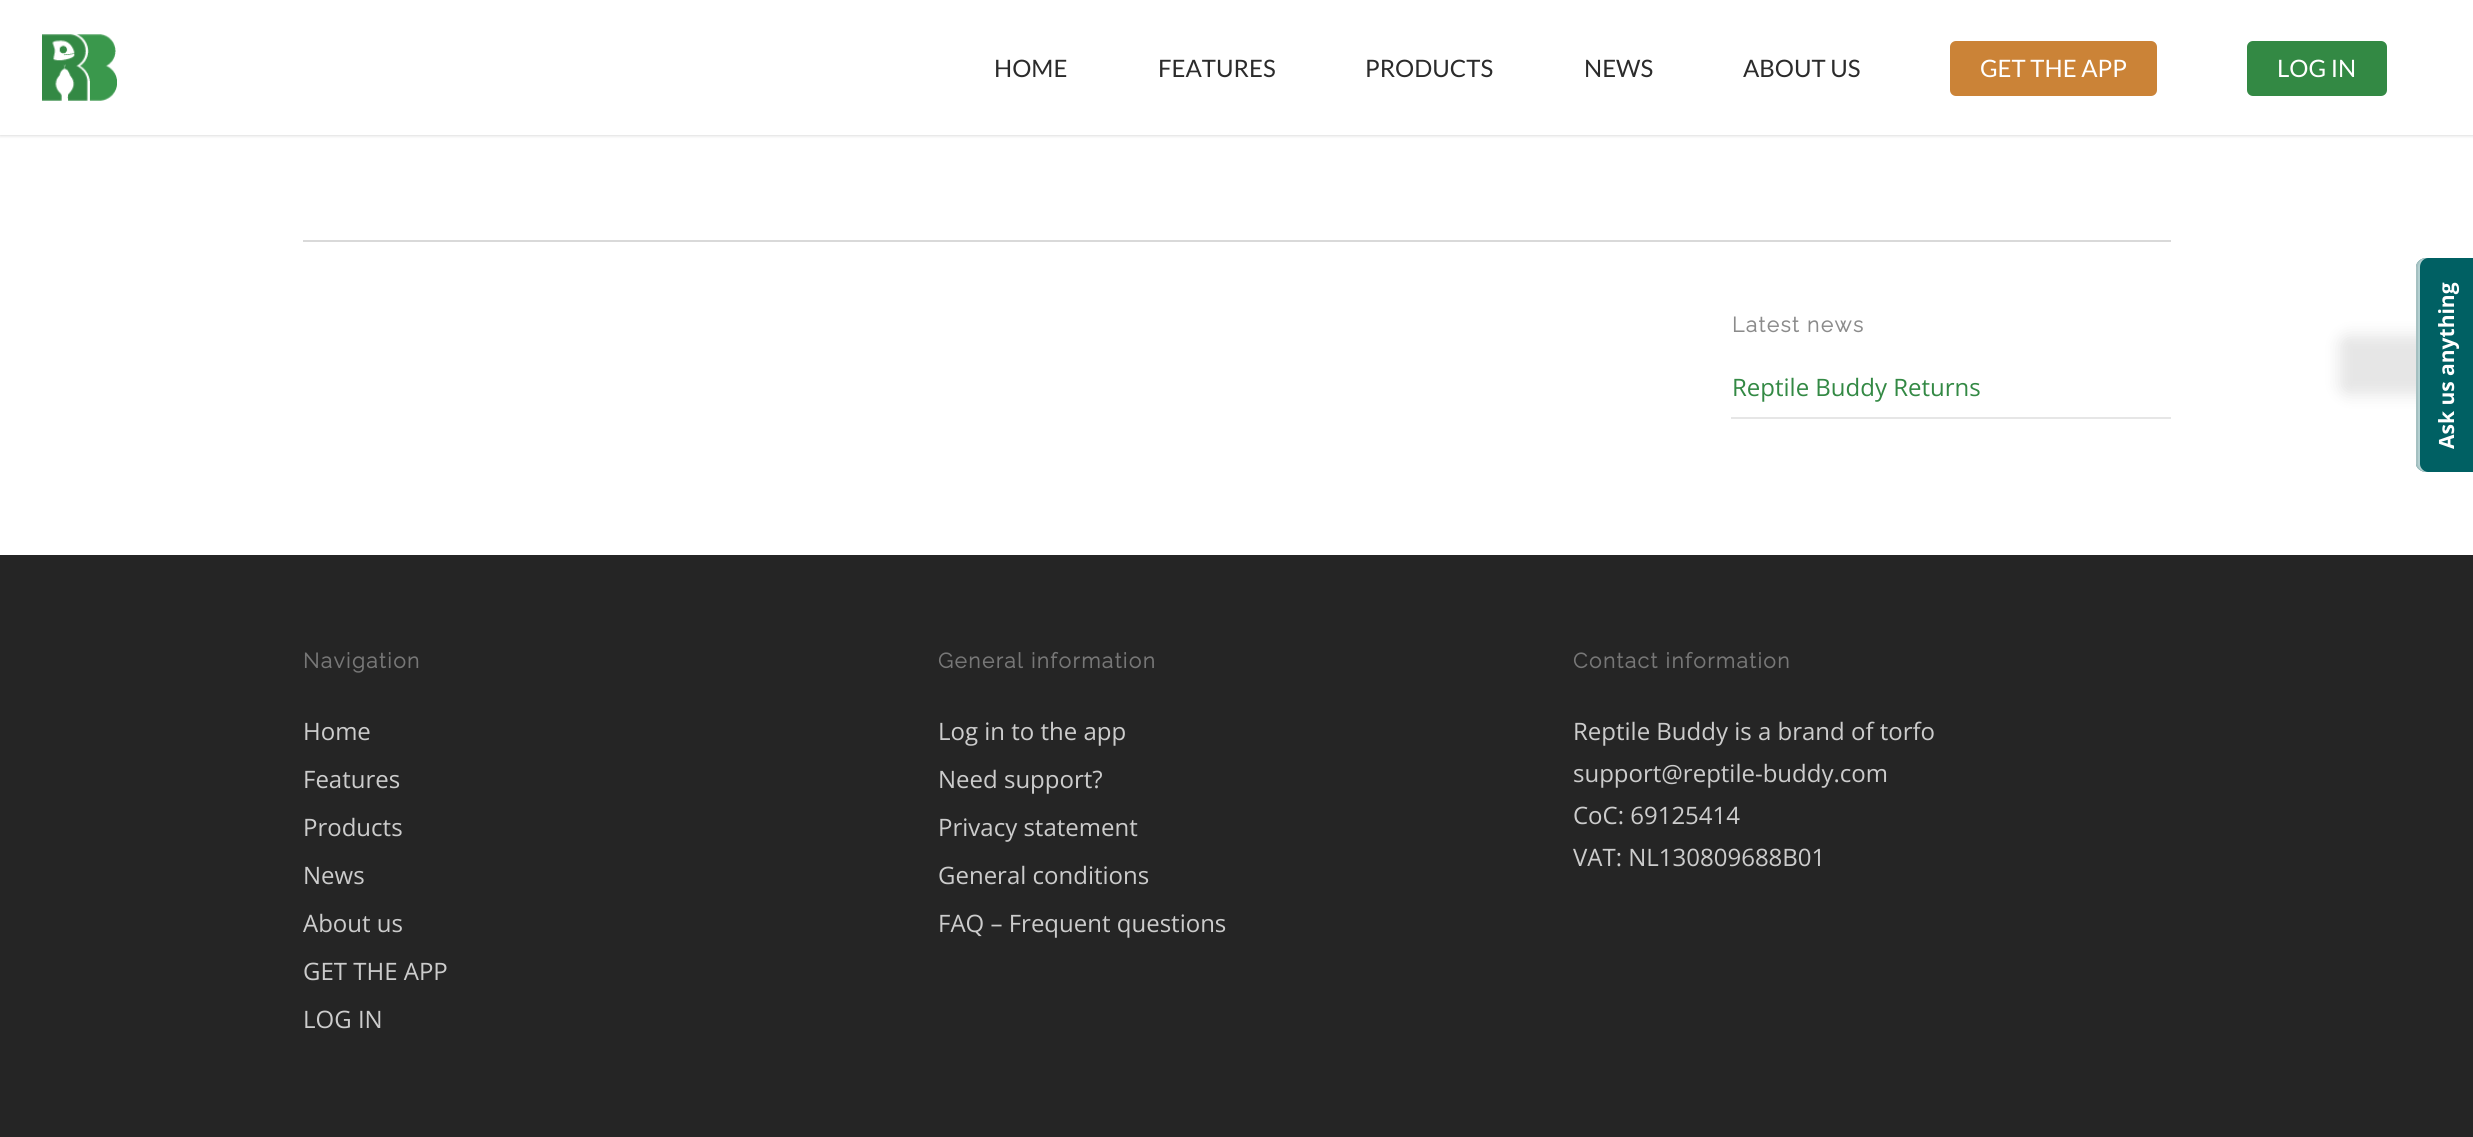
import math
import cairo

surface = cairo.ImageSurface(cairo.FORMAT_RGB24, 2473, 1137)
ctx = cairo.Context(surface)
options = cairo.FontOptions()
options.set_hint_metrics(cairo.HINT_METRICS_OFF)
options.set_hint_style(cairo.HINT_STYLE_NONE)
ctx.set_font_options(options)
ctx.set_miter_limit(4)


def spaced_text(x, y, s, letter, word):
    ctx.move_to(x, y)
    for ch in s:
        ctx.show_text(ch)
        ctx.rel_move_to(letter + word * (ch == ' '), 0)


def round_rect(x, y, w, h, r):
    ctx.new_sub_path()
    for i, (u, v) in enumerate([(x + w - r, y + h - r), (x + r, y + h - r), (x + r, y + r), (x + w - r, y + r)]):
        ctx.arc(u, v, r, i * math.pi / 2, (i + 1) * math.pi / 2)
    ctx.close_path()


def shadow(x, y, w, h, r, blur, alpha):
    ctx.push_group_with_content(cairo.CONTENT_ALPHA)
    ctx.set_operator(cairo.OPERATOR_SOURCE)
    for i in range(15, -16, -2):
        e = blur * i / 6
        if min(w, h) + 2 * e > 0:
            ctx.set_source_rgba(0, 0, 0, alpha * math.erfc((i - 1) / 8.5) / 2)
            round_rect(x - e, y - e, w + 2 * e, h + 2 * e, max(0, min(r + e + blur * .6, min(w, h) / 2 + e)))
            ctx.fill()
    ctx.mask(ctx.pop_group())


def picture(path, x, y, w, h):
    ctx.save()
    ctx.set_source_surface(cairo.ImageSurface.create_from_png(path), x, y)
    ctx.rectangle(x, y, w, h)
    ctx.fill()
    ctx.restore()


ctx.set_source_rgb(1, 1, 1)
ctx.paint()
ctx.set_source_rgb(0, 0, 0)
shadow(0, 0, 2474, 135, 0, 2, 0.22)
ctx.set_source_rgb(1, 1, 1)
ctx.rectangle(0, 0, 2473, 135)
ctx.fill()
picture("img1.png", 42, 34, 75, 67)
ctx.select_font_face("Lato")
ctx.set_font_size(24)
ctx.set_source_rgb(0.169, 0.169, 0.169)
ctx.move_to(994, 77)
ctx.show_text("HOME")
ctx.move_to(1158, 77)
ctx.show_text("FEATURES")
ctx.move_to(1365, 77)
ctx.show_text("PRODUCTS")
ctx.move_to(1584, 77)
ctx.show_text("NEWS")
ctx.move_to(1743, 77)
ctx.show_text("ABOUT US")
ctx.set_source_rgb(0.796, 0.514, 0.216)
round_rect(1950, 41, 207, 55, 6)
ctx.fill()
ctx.set_source_rgb(1, 1, 1)
ctx.move_to(1980, 77)
ctx.show_text("GET THE APP")
ctx.set_source_rgb(0.2, 0.537, 0.267)
round_rect(2247, 41, 140, 55, 6)
ctx.fill()
ctx.set_source_rgb(1, 1, 1)
ctx.move_to(2277, 77)
ctx.show_text("LOG IN")
ctx.set_source_rgb(0.851, 0.851, 0.851)
ctx.rectangle(303, 240, 1868, 2)
ctx.fill()
ctx.select_font_face("Raleway", cairo.FONT_SLANT_NORMAL, cairo.FONT_WEIGHT_BOLD)
ctx.set_font_size(21)
ctx.set_source_rgb(0.545, 0.545, 0.545)
spaced_text(1732, 332, "Latest news", 1.5, 0)
ctx.set_source_rgb(0.902, 0.902, 0.902)
ctx.rectangle(1731, 417, 440, 2)
ctx.fill()
ctx.select_font_face("Open Sans")
ctx.set_font_size(24)
ctx.set_source_rgb(0.2, 0.537, 0.267)
ctx.move_to(1732, 396)
ctx.show_text("Reptile Buddy Returns")
ctx.set_source_rgb(0.145, 0.145, 0.145)
ctx.rectangle(0, 555, 2473, 582)
ctx.fill()
ctx.select_font_face("Raleway", cairo.FONT_SLANT_NORMAL, cairo.FONT_WEIGHT_BOLD)
ctx.set_font_size(21)
ctx.set_source_rgb(0.467, 0.467, 0.467)
spaced_text(303, 668, "Navigation", 1.5, 0)
ctx.select_font_face("Open Sans")
ctx.set_font_size(24)
ctx.set_source_rgb(0.8, 0.8, 0.8)
ctx.move_to(303, 740)
ctx.show_text("Home")
ctx.move_to(303, 788)
ctx.show_text("Features")
ctx.move_to(303, 836)
ctx.show_text("Products")
ctx.move_to(303, 884)
ctx.show_text("News")
ctx.move_to(303, 932)
ctx.show_text("About us")
ctx.move_to(303, 980)
ctx.show_text("GET THE APP")
ctx.move_to(303, 1028)
ctx.show_text("LOG IN")
ctx.select_font_face("Raleway", cairo.FONT_SLANT_NORMAL, cairo.FONT_WEIGHT_BOLD)
ctx.set_font_size(21)
ctx.set_source_rgb(0.467, 0.467, 0.467)
spaced_text(938, 668, "General information", 1.5, 0)
ctx.select_font_face("Open Sans")
ctx.set_font_size(24)
ctx.set_source_rgb(0.8, 0.8, 0.8)
ctx.move_to(938, 740)
ctx.show_text("Log in to the app")
ctx.move_to(938, 788)
ctx.show_text("Need support?")
ctx.move_to(938, 836)
ctx.show_text("Privacy statement")
ctx.move_to(938, 884)
ctx.show_text("General conditions")
ctx.move_to(938, 932)
ctx.show_text("FAQ – Frequent questions")
ctx.select_font_face("Raleway", cairo.FONT_SLANT_NORMAL, cairo.FONT_WEIGHT_BOLD)
ctx.set_font_size(21)
ctx.set_source_rgb(0.467, 0.467, 0.467)
spaced_text(1573, 668, "Contact information", 1.5, 0)
ctx.select_font_face("Open Sans")
ctx.set_font_size(24)
ctx.set_source_rgb(0.8, 0.8, 0.8)
ctx.move_to(1573, 740)
ctx.show_text("Reptile Buddy is a brand of torfo")
ctx.move_to(1573, 782)
ctx.show_text("support@reptile-buddy.com")
ctx.move_to(1573, 824)
ctx.show_text("CoC: 69125414")
ctx.move_to(1573, 866)
ctx.show_text("VAT: NL130809688B01")
ctx.set_source_rgb(0, 0, 0)
shadow(2339, 335, 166, 60, 9, 7.5, 0.1)
ctx.set_source_rgb(0, 0.376, 0.388)
ctx.new_path()
ctx.move_to(2416, 464)
ctx.line_to(2416, 267)
ctx.curve_to(2416, 262, 2421, 258, 2426, 258)
ctx.line_to(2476, 258)
ctx.line_to(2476, 472)
ctx.line_to(2426, 472)
ctx.curve_to(2421, 472, 2416, 468, 2416, 464)
ctx.close_path()
ctx.fill()
ctx.set_source_rgba(1, 1, 1, 0.7)
ctx.new_path()
ctx.move_to(2420, 464)
ctx.line_to(2420, 267)
ctx.curve_to(2420, 262, 2424, 258, 2428, 258)
ctx.line_to(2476, 258)
ctx.line_to(2426, 258)
ctx.curve_to(2421, 258, 2416, 262, 2416, 267)
ctx.line_to(2416, 464)
ctx.curve_to(2416, 468, 2421, 472, 2426, 472)
ctx.line_to(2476, 472)
ctx.line_to(2428, 472)
ctx.curve_to(2424, 472, 2420, 468, 2420, 464)
ctx.close_path()
ctx.fill()
ctx.set_source_rgba(0, 0, 0, 0.08)
ctx.new_path()
ctx.move_to(2418, 464)
ctx.line_to(2418, 267)
ctx.curve_to(2418, 262, 2422, 258, 2427, 258)
ctx.line_to(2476, 258)
ctx.line_to(2426, 258)
ctx.curve_to(2421, 258, 2416, 262, 2416, 267)
ctx.line_to(2416, 464)
ctx.curve_to(2416, 468, 2421, 472, 2426, 472)
ctx.line_to(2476, 472)
ctx.line_to(2427, 472)
ctx.curve_to(2422, 472, 2418, 468, 2418, 464)
ctx.close_path()
ctx.fill()
ctx.select_font_face("Open Sans", cairo.FONT_SLANT_NORMAL, cairo.FONT_WEIGHT_BOLD)
ctx.set_font_size(21)
ctx.set_source_rgb(1, 1, 1)
ctx.save()
ctx.translate(2454, 449)
ctx.rotate(-90 * math.pi / 180)
ctx.move_to(0, 0)
ctx.show_text("Ask us anything")
ctx.restore()
surface.write_to_png("page.png")
